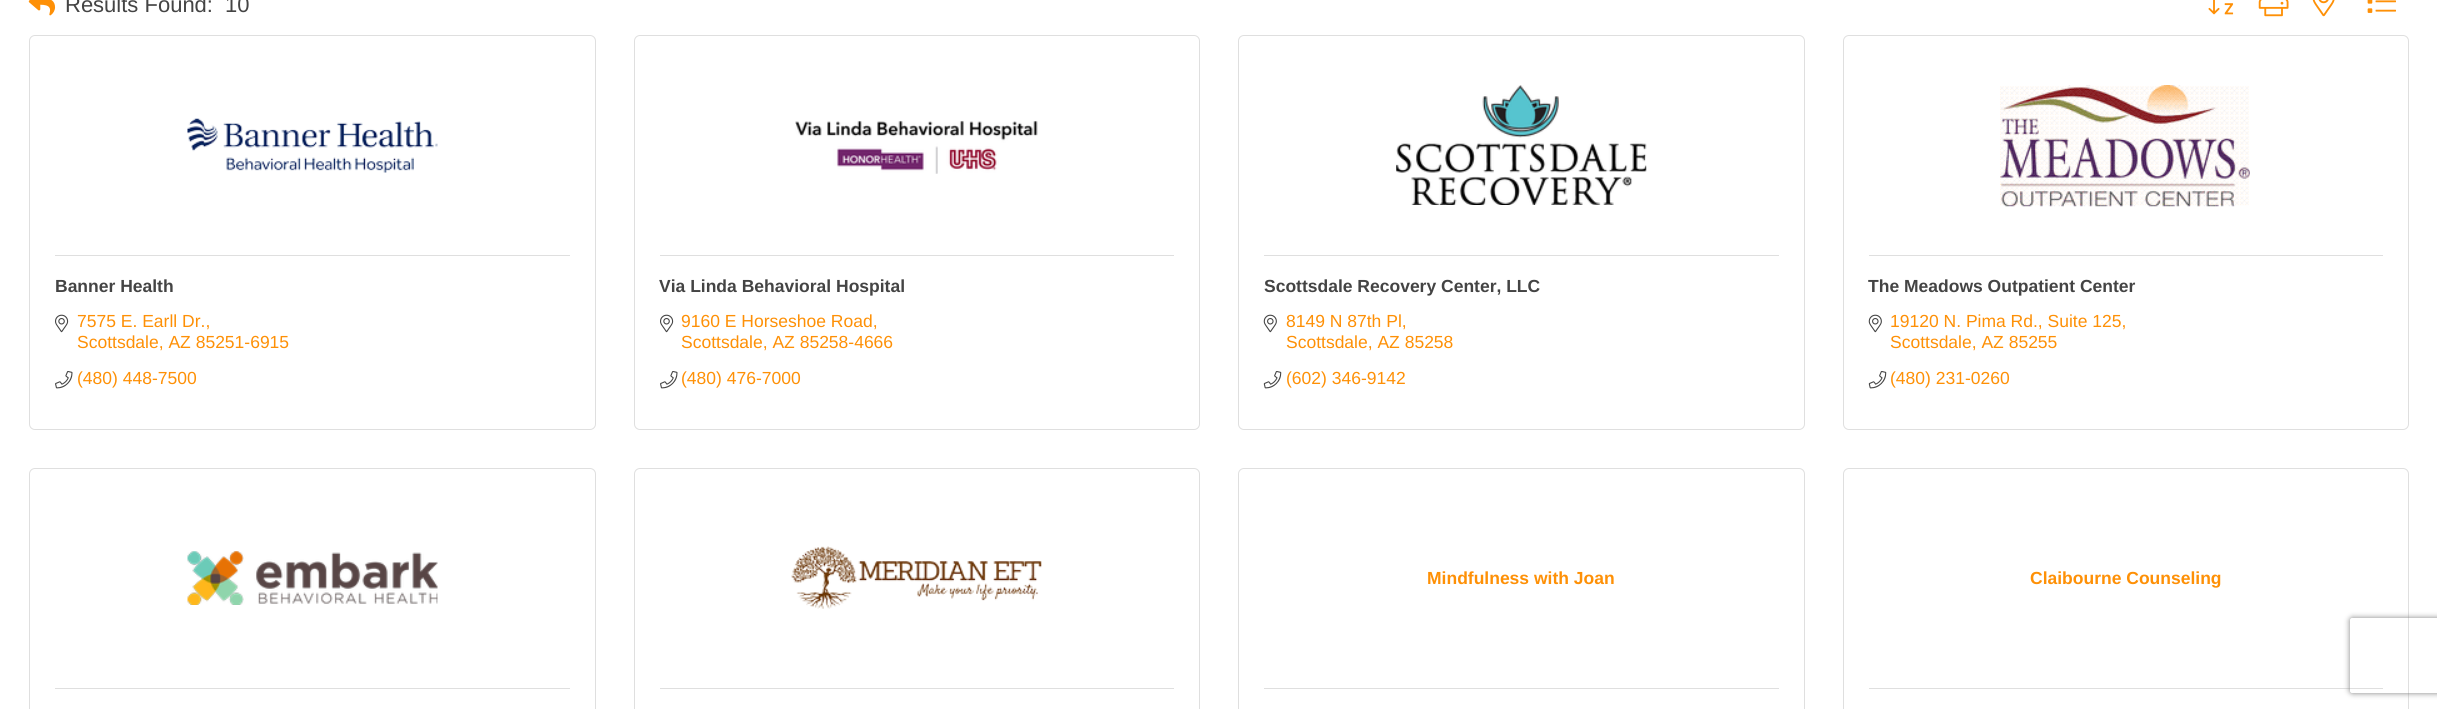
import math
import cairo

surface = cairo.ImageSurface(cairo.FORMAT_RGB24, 2437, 709)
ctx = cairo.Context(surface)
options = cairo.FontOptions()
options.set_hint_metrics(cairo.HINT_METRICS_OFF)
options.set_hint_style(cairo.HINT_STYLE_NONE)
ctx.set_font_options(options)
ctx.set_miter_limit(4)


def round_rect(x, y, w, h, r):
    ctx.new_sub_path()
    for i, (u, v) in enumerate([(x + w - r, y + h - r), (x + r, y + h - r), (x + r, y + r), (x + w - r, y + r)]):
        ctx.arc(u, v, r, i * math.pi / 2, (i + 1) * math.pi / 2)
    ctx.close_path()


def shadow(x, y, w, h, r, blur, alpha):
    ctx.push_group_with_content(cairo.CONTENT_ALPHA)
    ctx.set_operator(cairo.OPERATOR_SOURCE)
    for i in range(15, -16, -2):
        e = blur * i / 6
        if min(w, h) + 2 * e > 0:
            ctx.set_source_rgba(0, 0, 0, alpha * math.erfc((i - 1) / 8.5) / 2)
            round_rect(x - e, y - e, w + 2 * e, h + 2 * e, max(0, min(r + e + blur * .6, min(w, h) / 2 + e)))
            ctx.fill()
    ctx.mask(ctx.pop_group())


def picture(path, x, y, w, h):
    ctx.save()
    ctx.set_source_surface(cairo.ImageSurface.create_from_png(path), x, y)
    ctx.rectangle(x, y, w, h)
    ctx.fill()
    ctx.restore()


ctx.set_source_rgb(1, 1, 1)
ctx.paint()
picture("img1.png", 28, 0, 28, 16)
ctx.select_font_face("Liberation Sans")
ctx.set_font_size(22)
ctx.set_source_rgb(0.267, 0.267, 0.267)
ctx.move_to(65, 12)
ctx.show_text("Results Found:")
ctx.move_to(225, 12)
ctx.show_text("10")
picture("img2.png", 2208, 0, 26, 15)
picture("img3.png", 2258, 0, 31, 17)
picture("img4.png", 2312, 0, 23, 17)
picture("img5.png", 2367, 0, 29, 13)
round_rect(29.5, 35.5, 566, 394, 5.5)
ctx.set_source_rgb(0.875, 0.875, 0.875)
ctx.set_line_width(1)
ctx.stroke()
picture("img6.png", 187, 118, 251, 55)
ctx.rectangle(55, 255, 515, 1)
ctx.fill()
ctx.select_font_face("Liberation Sans", cairo.FONT_SLANT_NORMAL, cairo.FONT_WEIGHT_BOLD)
ctx.set_font_size(17.5)
ctx.set_source_rgb(0.267, 0.267, 0.267)
ctx.move_to(55, 292)
ctx.show_text("Banner Health")
picture("img7.png", 55, 314, 14, 19)
ctx.select_font_face("Liberation Sans")
ctx.set_source_rgb(0.996, 0.565, 0.027)
ctx.move_to(77, 327)
ctx.show_text("7575 E. Earll Dr.,")
ctx.move_to(77, 348)
ctx.show_text("Scottsdale, AZ 85251-6915")
picture("img8.png", 55, 371, 18, 18)
ctx.move_to(77, 384)
ctx.show_text("(480) 448-7500")
round_rect(634.5, 35.5, 565, 394, 5.5)
ctx.set_source_rgb(0.875, 0.875, 0.875)
ctx.stroke()
picture("img9.png", 795, 120, 243, 54)
ctx.rectangle(660, 255, 514, 1)
ctx.fill()
ctx.select_font_face("Liberation Sans", cairo.FONT_SLANT_NORMAL, cairo.FONT_WEIGHT_BOLD)
ctx.set_source_rgb(0.267, 0.267, 0.267)
ctx.move_to(659, 292)
ctx.show_text("Via Linda Behavioral Hospital")
picture("img7.png", 660, 314, 14, 19)
ctx.select_font_face("Liberation Sans")
ctx.set_source_rgb(0.996, 0.565, 0.027)
ctx.move_to(681, 327)
ctx.show_text("9160 E Horseshoe Road,")
ctx.move_to(681, 348)
ctx.show_text("Scottsdale, AZ 85258-4666")
picture("img8.png", 660, 371, 18, 18)
ctx.move_to(681, 384)
ctx.show_text("(480) 476-7000")
round_rect(1238.5, 35.5, 566, 394, 5.5)
ctx.set_source_rgb(0.875, 0.875, 0.875)
ctx.stroke()
picture("img10.png", 1396, 85, 251, 120)
ctx.rectangle(1264, 255, 515, 1)
ctx.fill()
ctx.select_font_face("Liberation Sans", cairo.FONT_SLANT_NORMAL, cairo.FONT_WEIGHT_BOLD)
ctx.set_source_rgb(0.267, 0.267, 0.267)
ctx.move_to(1264, 292)
ctx.show_text("Scottsdale Recovery Center, LLC")
picture("img11.png", 1263, 314, 14, 19)
ctx.select_font_face("Liberation Sans")
ctx.set_source_rgb(0.996, 0.565, 0.027)
ctx.move_to(1286, 327)
ctx.show_text("8149 N 87th Pl,")
ctx.move_to(1286, 348)
ctx.show_text("Scottsdale, AZ 85258")
picture("img12.png", 1263, 371, 19, 18)
ctx.move_to(1286, 384)
ctx.show_text("(602) 346-9142")
round_rect(1843.5, 35.5, 565, 394, 5.5)
ctx.set_source_rgb(0.875, 0.875, 0.875)
ctx.stroke()
picture("img13.png", 2000, 85, 250, 122)
ctx.rectangle(1869, 255, 514, 1)
ctx.fill()
ctx.select_font_face("Liberation Sans", cairo.FONT_SLANT_NORMAL, cairo.FONT_WEIGHT_BOLD)
ctx.set_source_rgb(0.267, 0.267, 0.267)
ctx.move_to(1868, 292)
ctx.show_text("The Meadows Outpatient Center")
picture("img11.png", 1868, 314, 14, 19)
ctx.select_font_face("Liberation Sans")
ctx.set_source_rgb(0.996, 0.565, 0.027)
ctx.move_to(1890, 327)
ctx.show_text("19120 N. Pima Rd., Suite 125,")
ctx.move_to(1890, 348)
ctx.show_text("Scottsdale, AZ 85255")
picture("img12.png", 1868, 371, 19, 18)
ctx.move_to(1890, 384)
ctx.show_text("(480) 231-0260")
round_rect(29.5, 468.5, 566, 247, 5.5)
ctx.set_source_rgb(0.875, 0.875, 0.875)
ctx.stroke()
picture("img14.png", 187, 551, 251, 54)
ctx.rectangle(55, 688, 515, 1)
ctx.fill()
round_rect(634.5, 468.5, 565, 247, 5.5)
ctx.stroke()
picture("img15.png", 791, 546, 251, 63)
ctx.rectangle(660, 688, 514, 1)
ctx.fill()
round_rect(1238.5, 468.5, 566, 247, 5.5)
ctx.stroke()
ctx.select_font_face("Liberation Sans", cairo.FONT_SLANT_NORMAL, cairo.FONT_WEIGHT_BOLD)
ctx.set_source_rgb(0.996, 0.565, 0.027)
ctx.move_to(1427, 584)
ctx.show_text("Mindfulness with Joan")
ctx.set_source_rgb(0.875, 0.875, 0.875)
ctx.rectangle(1264, 688, 515, 1)
ctx.fill()
round_rect(1843.5, 468.5, 565, 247, 5.5)
ctx.stroke()
ctx.set_source_rgb(0.996, 0.565, 0.027)
ctx.move_to(2030, 584)
ctx.show_text("Claibourne Counseling")
ctx.set_source_rgb(0.875, 0.875, 0.875)
ctx.rectangle(1869, 688, 514, 1)
ctx.fill()
ctx.save()
ctx.set_fill_rule(cairo.FILL_RULE_EVEN_ODD)
ctx.new_path()
ctx.move_to(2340, 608)
ctx.line_to(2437, 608)
ctx.line_to(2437, 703)
ctx.line_to(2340, 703)
ctx.close_path()
ctx.move_to(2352.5, 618)
ctx.line_to(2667.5, 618)
ctx.curve_to(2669, 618, 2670, 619, 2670, 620.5)
ctx.line_to(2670, 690.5)
ctx.curve_to(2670, 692, 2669, 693, 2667.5, 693)
ctx.line_to(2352.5, 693)
ctx.curve_to(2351, 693, 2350, 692, 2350, 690.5)
ctx.line_to(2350, 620.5)
ctx.curve_to(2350, 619, 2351, 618, 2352.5, 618)
ctx.close_path()
ctx.clip()
ctx.set_source_rgb(0.502, 0.502, 0.502)
shadow(2350, 618, 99, 75, 2.5, 3, 1)
ctx.restore()
surface.write_to_png("page.png")
